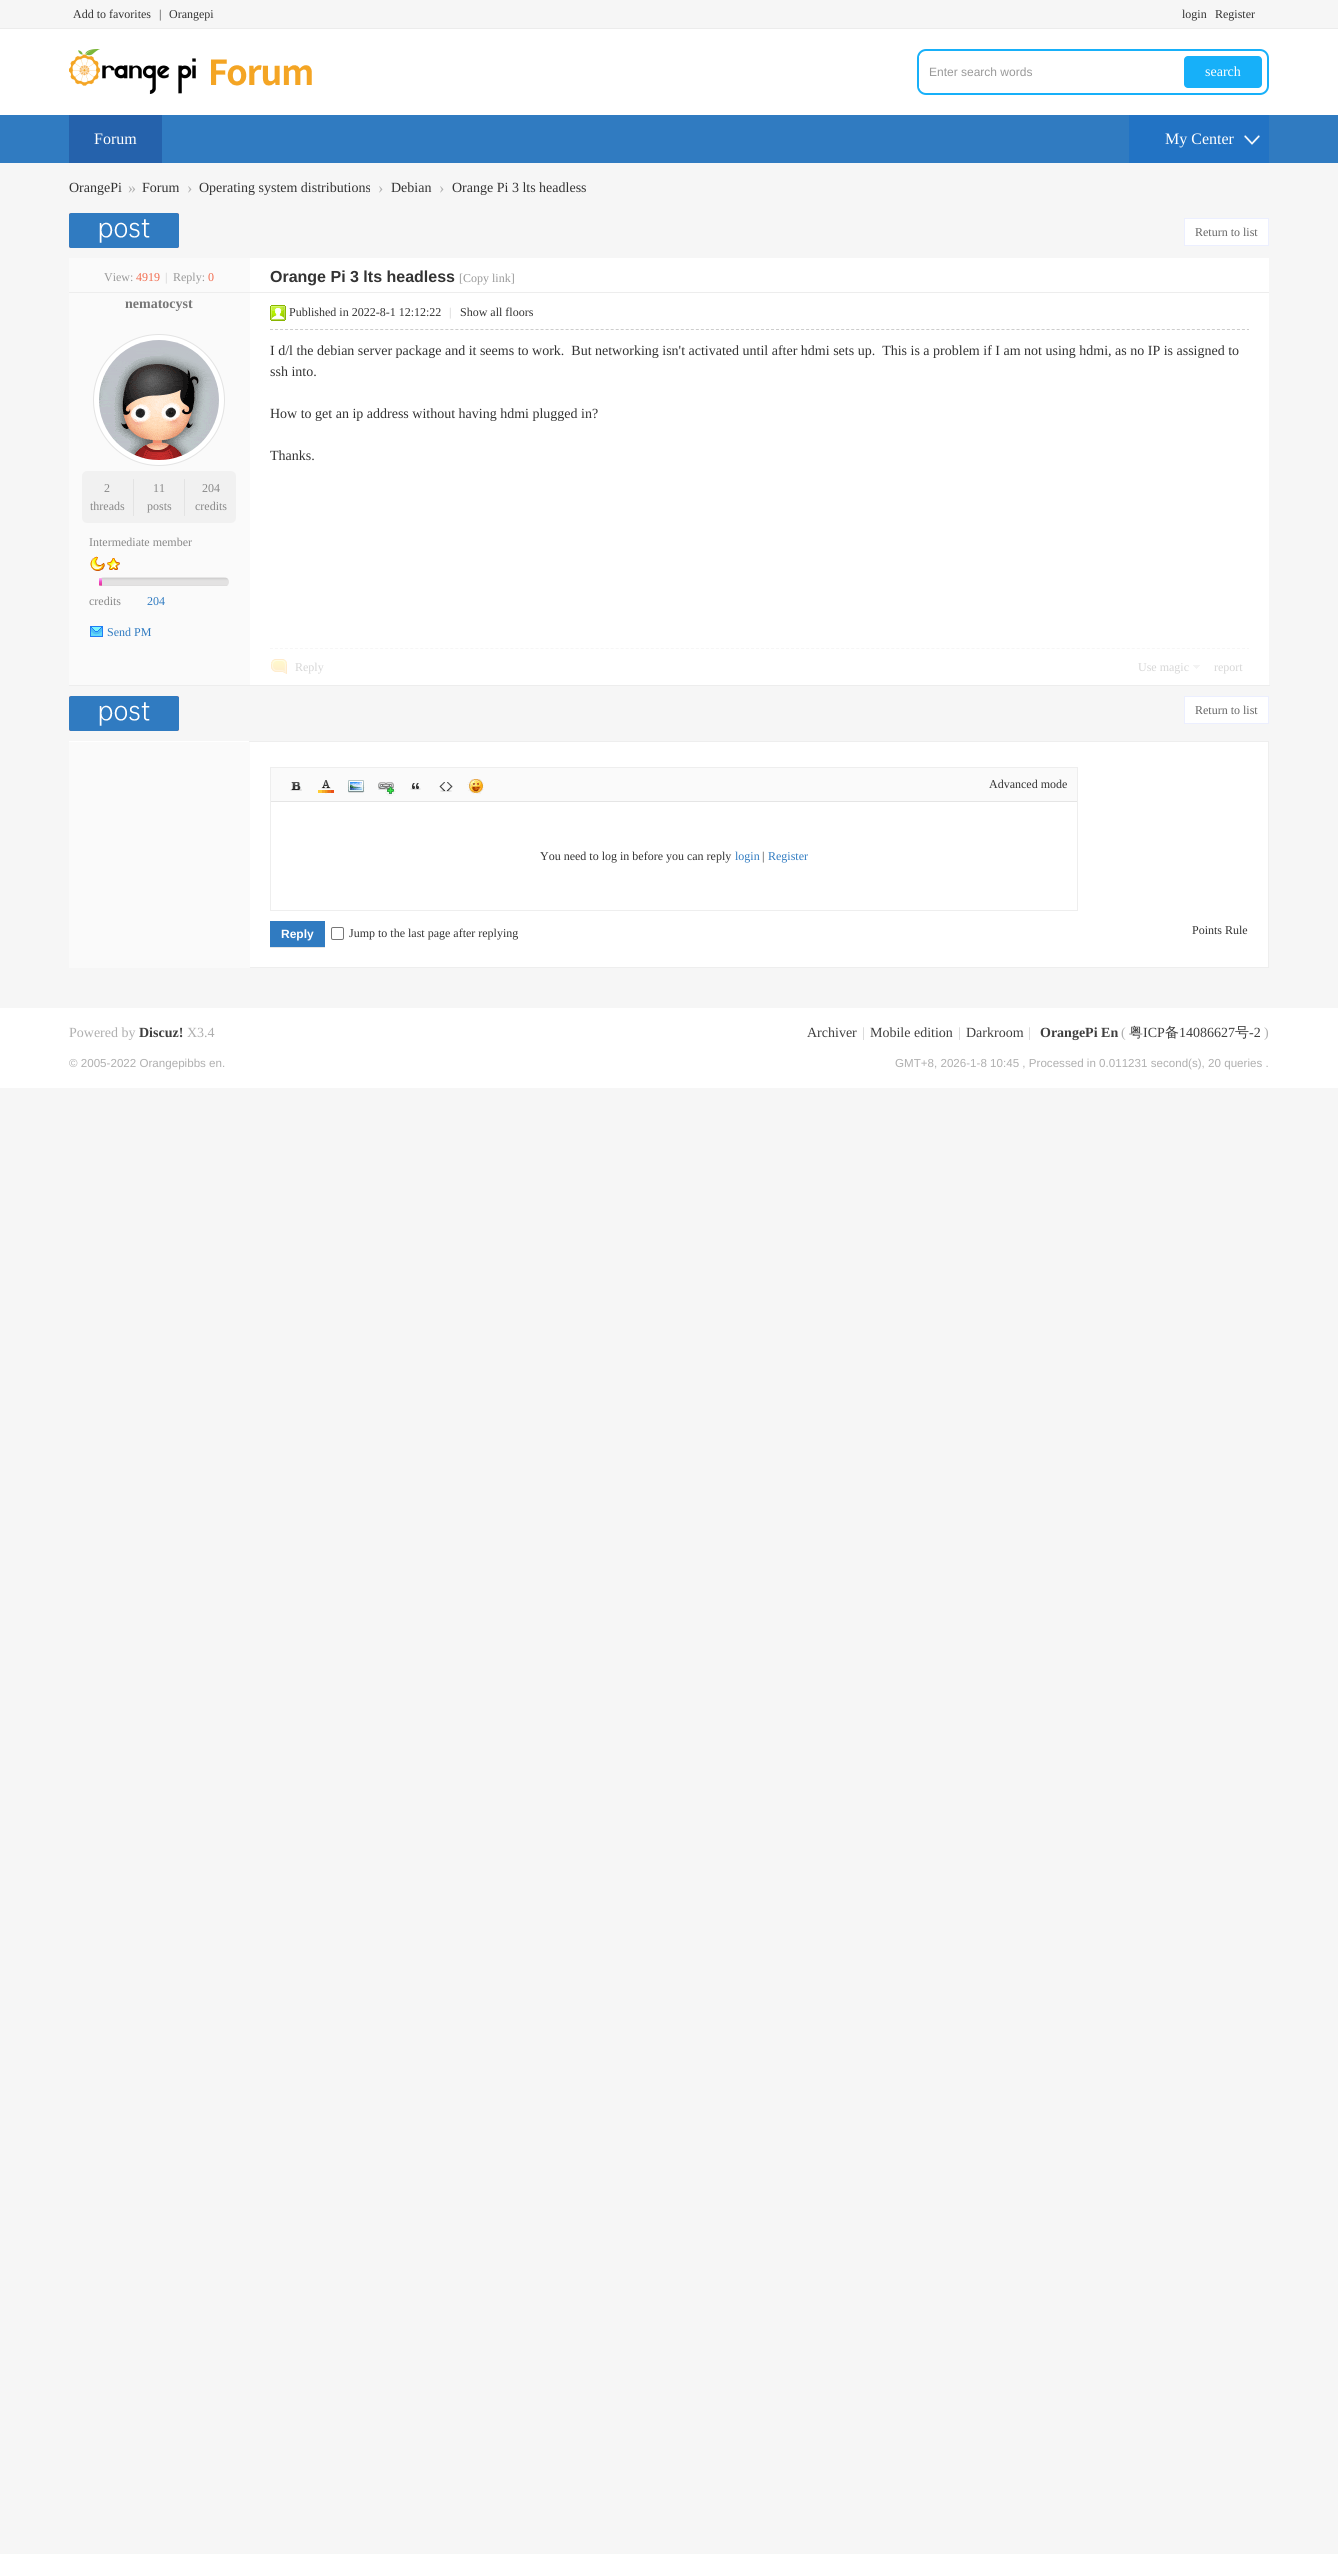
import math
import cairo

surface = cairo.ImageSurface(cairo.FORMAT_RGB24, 1338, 2554)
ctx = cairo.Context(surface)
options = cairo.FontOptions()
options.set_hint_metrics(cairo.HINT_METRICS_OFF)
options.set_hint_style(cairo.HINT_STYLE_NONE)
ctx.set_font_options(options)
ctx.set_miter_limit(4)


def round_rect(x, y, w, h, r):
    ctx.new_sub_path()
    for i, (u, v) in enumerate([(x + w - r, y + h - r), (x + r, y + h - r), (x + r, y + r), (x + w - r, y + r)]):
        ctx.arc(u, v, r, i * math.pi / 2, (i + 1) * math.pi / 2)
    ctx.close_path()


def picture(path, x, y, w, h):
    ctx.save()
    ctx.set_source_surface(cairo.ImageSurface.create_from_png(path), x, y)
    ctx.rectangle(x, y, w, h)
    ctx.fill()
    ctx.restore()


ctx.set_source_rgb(0.961, 0.961, 0.961)
ctx.paint()
ctx.set_source_rgb(0.922, 0.922, 0.922)
ctx.rectangle(0, 28, 1338, 1)
ctx.fill()
ctx.select_font_face("Liberation Serif")
ctx.set_font_size(12)
ctx.set_source_rgb(0.2, 0.2, 0.2)
ctx.move_to(73, 18)
ctx.show_text("Add to favorites")
ctx.move_to(159, 18)
ctx.show_text("|")
ctx.move_to(169, 18)
ctx.show_text("Orangepi")
ctx.move_to(1182, 18)
ctx.show_text("login")
ctx.move_to(1215, 18)
ctx.show_text("Register")
ctx.set_source_rgb(1, 1, 1)
ctx.rectangle(0, 29, 1338, 86)
ctx.fill()
picture("img1.png", 69, 49, 243, 45)
round_rect(918, 50, 350, 44, 8)
ctx.set_source_rgb(0.09, 0.69, 0.973)
ctx.stroke()
ctx.set_source_rgb(1, 1, 1)
ctx.rectangle(919, 56, 1, 32)
ctx.fill()
ctx.select_font_face("Liberation Sans")
ctx.set_source_rgb(0.6, 0.6, 0.6)
ctx.move_to(929, 76)
ctx.show_text("Enter search words")
ctx.set_source_rgb(0.09, 0.69, 0.973)
round_rect(1184, 56, 78, 32, 4)
ctx.fill()
ctx.select_font_face("Liberation Serif")
ctx.set_font_size(14)
ctx.set_source_rgb(1, 1, 1)
ctx.move_to(1205, 76)
ctx.show_text("search")
ctx.set_source_rgb(0.188, 0.482, 0.757)
ctx.rectangle(0, 115, 1338, 48)
ctx.fill()
ctx.set_source_rgb(0.145, 0.384, 0.675)
ctx.rectangle(69, 115, 93, 48)
ctx.fill()
ctx.set_font_size(16)
ctx.set_source_rgb(1, 1, 1)
ctx.move_to(94, 144)
ctx.show_text("Forum")
ctx.set_source_rgb(0.133, 0.451, 0.769)
ctx.rectangle(1129, 115, 140, 48)
ctx.fill()
picture("img2.png", 1244, 135, 16, 10)
ctx.set_source_rgb(1, 1, 1)
ctx.move_to(1165, 144)
ctx.show_text("My Center")
ctx.set_font_size(14)
ctx.set_source_rgb(0.2, 0.2, 0.2)
ctx.move_to(69, 192)
ctx.show_text("OrangePi")
ctx.set_font_size(16)
ctx.set_source_rgb(0.686, 0.686, 0.686)
ctx.move_to(128, 193)
ctx.show_text("»")
ctx.set_font_size(14)
ctx.set_source_rgb(0.2, 0.2, 0.2)
ctx.move_to(142, 192)
ctx.show_text("Forum")
ctx.set_font_size(16)
ctx.set_source_rgb(0.686, 0.686, 0.686)
ctx.move_to(187, 193)
ctx.show_text("›")
ctx.set_font_size(14)
ctx.set_source_rgb(0.2, 0.2, 0.2)
ctx.move_to(199, 192)
ctx.show_text("Operating system distributions")
ctx.set_font_size(16)
ctx.set_source_rgb(0.686, 0.686, 0.686)
ctx.move_to(378, 193)
ctx.show_text("›")
ctx.set_font_size(14)
ctx.set_source_rgb(0.2, 0.2, 0.2)
ctx.move_to(391, 192)
ctx.show_text("Debian")
ctx.set_font_size(16)
ctx.set_source_rgb(0.686, 0.686, 0.686)
ctx.move_to(439, 193)
ctx.show_text("›")
ctx.set_font_size(14)
ctx.set_source_rgb(0.2, 0.2, 0.2)
ctx.move_to(452, 192)
ctx.show_text("Orange Pi 3 lts headless")
picture("img3.png", 69, 213, 110, 35)
ctx.set_source_rgb(1, 1, 1)
ctx.rectangle(1184.5, 218.5, 84, 27)
ctx.fill_preserve()
ctx.set_source_rgb(0.922, 0.937, 1)
ctx.set_line_width(1)
ctx.stroke()
ctx.set_font_size(12)
ctx.set_source_rgb(0.4, 0.4, 0.4)
ctx.move_to(1195, 236)
ctx.show_text("Return to list")
ctx.set_source_rgb(1, 1, 1)
ctx.rectangle(250, 258, 1019, 427)
ctx.fill()
ctx.set_source_rgb(0.98, 0.98, 0.98)
ctx.rectangle(69, 258, 181, 34)
ctx.fill()
ctx.set_source_rgb(0.6, 0.6, 0.6)
ctx.move_to(104, 281)
ctx.show_text("View:")
ctx.set_source_rgb(0.949, 0.424, 0.31)
ctx.move_to(136, 281)
ctx.show_text("4919")
ctx.set_source_rgb(0.8, 0.8, 0.8)
ctx.move_to(165, 281)
ctx.show_text("|")
ctx.set_source_rgb(0.6, 0.6, 0.6)
ctx.move_to(173, 281)
ctx.show_text("Reply:")
ctx.set_source_rgb(0.949, 0.424, 0.31)
ctx.move_to(208, 281)
ctx.show_text("0")
ctx.select_font_face("Liberation Sans", cairo.FONT_SLANT_NORMAL, cairo.FONT_WEIGHT_BOLD)
ctx.set_font_size(16)
ctx.set_source_rgb(0.2, 0.2, 0.2)
ctx.move_to(270, 282)
ctx.show_text("Orange Pi 3 lts headless")
ctx.select_font_face("Liberation Serif")
ctx.set_font_size(12)
ctx.set_source_rgb(0.6, 0.6, 0.6)
ctx.move_to(459, 282)
ctx.show_text("[Copy link]")
ctx.set_source_rgb(0.929, 0.929, 0.929)
ctx.rectangle(69, 292, 1200, 1)
ctx.fill()
ctx.set_source_rgb(0.98, 0.98, 0.98)
ctx.rectangle(69, 293, 181, 392)
ctx.fill()
ctx.select_font_face("Liberation Serif", cairo.FONT_SLANT_NORMAL, cairo.FONT_WEIGHT_BOLD)
ctx.set_font_size(14)
ctx.set_source_rgb(0.467, 0.467, 0.467)
ctx.move_to(125, 308)
ctx.show_text("nematocyst")
ctx.set_source_rgb(1, 1, 1)
ctx.new_path()
ctx.arc(159, 400, 65.5, 0, 2 * math.pi)
ctx.fill_preserve()
ctx.set_source_rgb(0.89, 0.89, 0.89)
ctx.stroke()
picture("img4.png", 99, 340, 120, 120)
ctx.set_source_rgb(0.945, 0.945, 0.945)
round_rect(82, 471, 154, 52, 5)
ctx.fill()
ctx.set_source_rgb(0.89, 0.89, 0.89)
ctx.rectangle(133, 479, 1, 37)
ctx.fill()
ctx.select_font_face("Liberation Serif")
ctx.set_font_size(12)
ctx.set_source_rgb(0.533, 0.533, 0.533)
ctx.move_to(104, 492)
ctx.show_text("2")
ctx.move_to(90, 510)
ctx.show_text("threads")
ctx.set_source_rgb(0.89, 0.89, 0.89)
ctx.rectangle(184, 479, 1, 37)
ctx.fill()
ctx.set_source_rgb(0.533, 0.533, 0.533)
ctx.move_to(153, 492)
ctx.show_text("11")
ctx.move_to(147, 510)
ctx.show_text("posts")
ctx.move_to(202, 492)
ctx.show_text("204")
ctx.move_to(195, 510)
ctx.show_text("credits")
ctx.move_to(89, 546)
ctx.show_text("Intermediate member")
picture("img5.png", 90, 556, 15, 15)
picture("img6.png", 107, 558, 13, 12)
picture("img7.png", 100, 577, 129, 9)
picture("img8.png", 99, 578, 3, 8)
ctx.move_to(89, 605)
ctx.show_text("credits")
ctx.set_source_rgb(0.188, 0.482, 0.757)
ctx.move_to(147, 605)
ctx.show_text("204")
picture("img9.png", 90, 626, 13, 11)
ctx.move_to(107, 636)
ctx.show_text("Send PM")
ctx.new_path()
ctx.move_to(270, 329.5)
ctx.line_to(1249, 329.5)
ctx.set_source_rgb(0.804, 0.804, 0.804)
ctx.set_dash([3, 2.01])
ctx.stroke()
picture("img10.png", 270, 305, 16, 16)
ctx.set_source_rgb(0.2, 0.2, 0.2)
ctx.move_to(289, 316)
ctx.show_text("Published in 2022-8-1 12:12:22")
ctx.set_source_rgb(0.8, 0.8, 0.8)
ctx.move_to(449, 316)
ctx.show_text("|")
ctx.set_source_rgb(0.2, 0.2, 0.2)
ctx.move_to(460, 316)
ctx.show_text("Show all floors")
ctx.set_font_size(14)
ctx.move_to(270, 355)
ctx.show_text("I d/l the debian server package and it seems to work.  But networking isn't activated until after hdmi sets up.  This is a problem if I am not using hdmi, as no IP is assigned to")
ctx.move_to(270, 376)
ctx.show_text("ssh into.")
ctx.move_to(270, 418)
ctx.show_text("How to get an ip address without having hdmi plugged in?")
ctx.move_to(270, 460)
ctx.show_text("Thanks.")
ctx.new_path()
ctx.move_to(270, 648.5)
ctx.line_to(1249, 648.5)
ctx.set_source_rgb(0.961, 0.961, 0.961)
ctx.stroke()
picture("img11.png", 271, 659, 16, 15)
ctx.set_font_size(12)
ctx.set_source_rgb(0.839, 0.839, 0.839)
ctx.move_to(295, 671)
ctx.show_text("Reply")
ctx.move_to(1138, 671)
ctx.show_text("Use magic")
picture("img12.png", 1193, 665, 7, 4)
ctx.move_to(1214, 671)
ctx.show_text("report")
ctx.set_source_rgb(0.929, 0.929, 0.929)
ctx.rectangle(69, 685, 1201, 1)
ctx.fill()
picture("img3.png", 69, 696, 110, 35)
ctx.set_source_rgb(1, 1, 1)
ctx.rectangle(1184.5, 696.5, 84, 27)
ctx.fill_preserve()
ctx.set_source_rgb(0.922, 0.937, 1)
ctx.set_dash([])
ctx.stroke()
ctx.set_source_rgb(0.4, 0.4, 0.4)
ctx.move_to(1195, 714)
ctx.show_text("Return to list")
ctx.set_source_rgb(1, 1, 1)
ctx.rectangle(69, 741, 1199, 226)
ctx.fill()
ctx.set_source_rgb(0.933, 0.933, 0.933)
ctx.rectangle(249, 741, 1020, 1)
ctx.fill()
ctx.rectangle(1268, 741, 1, 227)
ctx.fill()
ctx.rectangle(249, 967, 1020, 1)
ctx.fill()
ctx.set_source_rgb(0.98, 0.98, 0.98)
ctx.rectangle(69, 742, 181, 226)
ctx.fill()
ctx.rectangle(270.5, 767.5, 807, 143)
ctx.set_source_rgb(0.933, 0.933, 0.933)
ctx.stroke()
ctx.set_source_rgb(0.98, 0.98, 0.98)
ctx.rectangle(271, 768, 806, 33)
ctx.fill()
ctx.set_source_rgb(0.898, 0.898, 0.898)
ctx.rectangle(271, 801, 806, 1)
ctx.fill()
picture("img13.png", 290, 782, 12, 9)
picture("img14.png", 318, 780, 16, 14)
picture("img15.png", 348, 780, 17, 13)
picture("img16.png", 378, 782, 18, 14)
picture("img17.png", 410, 783, 11, 7)
picture("img18.png", 439, 782, 14, 10)
picture("img19.png", 467, 779, 17, 15)
ctx.set_source_rgb(0.2, 0.2, 0.2)
ctx.move_to(989, 788)
ctx.show_text("Advanced mode")
ctx.move_to(540, 860)
ctx.show_text("You need to log in before you can reply")
ctx.set_source_rgb(0.188, 0.482, 0.757)
ctx.move_to(735, 860)
ctx.show_text("login")
ctx.set_source_rgb(0.2, 0.2, 0.2)
ctx.move_to(762, 860)
ctx.show_text("|")
ctx.set_source_rgb(0.188, 0.482, 0.757)
ctx.move_to(768, 860)
ctx.show_text("Register")
ctx.set_source_rgb(0.898, 0.898, 0.898)
ctx.rectangle(270, 947, 55, 1)
ctx.fill()
ctx.set_source_rgb(0.188, 0.482, 0.757)
ctx.rectangle(270, 921, 55, 26)
ctx.fill()
ctx.select_font_face("Liberation Sans", cairo.FONT_SLANT_NORMAL, cairo.FONT_WEIGHT_BOLD)
ctx.set_source_rgb(1, 1, 1)
ctx.move_to(281, 938)
ctx.show_text("Reply")
round_rect(331.5, 927.5, 12, 12, 1.5)
ctx.set_source_rgb(0.463, 0.463, 0.463)
ctx.stroke()
ctx.select_font_face("Liberation Serif")
ctx.set_source_rgb(0.2, 0.2, 0.2)
ctx.move_to(349, 937)
ctx.show_text("Jump to the last page after replying")
ctx.move_to(1192, 934)
ctx.show_text("Points Rule")
ctx.set_source_rgb(1, 1, 1)
ctx.rectangle(0, 1008, 1338, 80)
ctx.fill()
ctx.set_font_size(14)
ctx.set_source_rgb(0.686, 0.686, 0.686)
ctx.move_to(69, 1037)
ctx.show_text("Powered by")
ctx.select_font_face("Liberation Serif", cairo.FONT_SLANT_NORMAL, cairo.FONT_WEIGHT_BOLD)
ctx.set_source_rgb(0.247, 0.247, 0.247)
ctx.move_to(139, 1037)
ctx.show_text("Discuz!")
ctx.select_font_face("Liberation Serif")
ctx.set_source_rgb(0.686, 0.686, 0.686)
ctx.move_to(187, 1037)
ctx.show_text("X3.4")
ctx.select_font_face("Liberation Sans")
ctx.set_font_size(11.6)
ctx.move_to(69, 1067)
ctx.show_text("© 2005-2022 Orangepibbs en.")
ctx.select_font_face("Liberation Serif")
ctx.set_font_size(14)
ctx.set_source_rgb(0.247, 0.247, 0.247)
ctx.move_to(807, 1037)
ctx.show_text("Archiver")
ctx.set_source_rgb(0.8, 0.8, 0.8)
ctx.move_to(862, 1037)
ctx.show_text("|")
ctx.set_source_rgb(0.247, 0.247, 0.247)
ctx.move_to(870, 1037)
ctx.show_text("Mobile edition")
ctx.set_source_rgb(0.8, 0.8, 0.8)
ctx.move_to(958, 1037)
ctx.show_text("|")
ctx.set_source_rgb(0.247, 0.247, 0.247)
ctx.move_to(966, 1037)
ctx.show_text("Darkroom")
ctx.set_source_rgb(0.8, 0.8, 0.8)
ctx.move_to(1028, 1037)
ctx.show_text("|")
ctx.select_font_face("Liberation Serif", cairo.FONT_SLANT_NORMAL, cairo.FONT_WEIGHT_BOLD)
ctx.set_source_rgb(0.247, 0.247, 0.247)
ctx.move_to(1040, 1037)
ctx.show_text("OrangePi En")
ctx.select_font_face("Liberation Serif")
ctx.set_source_rgb(0.686, 0.686, 0.686)
ctx.move_to(1121, 1037)
ctx.show_text("(")
ctx.select_font_face("WenQuanYi Zen Hei Medium")
ctx.set_source_rgb(0.247, 0.247, 0.247)
ctx.move_to(1129, 1037)
ctx.show_text("粤")
ctx.select_font_face("Liberation Serif")
ctx.move_to(1143, 1037)
ctx.show_text("ICP")
ctx.select_font_face("WenQuanYi Zen Hei Medium")
ctx.move_to(1165, 1037)
ctx.show_text("备")
ctx.select_font_face("Liberation Serif")
ctx.move_to(1179, 1037)
ctx.show_text("14086627")
ctx.select_font_face("WenQuanYi Zen Hei Medium")
ctx.move_to(1235, 1037)
ctx.show_text("号")
ctx.select_font_face("Liberation Serif")
ctx.move_to(1249, 1037)
ctx.show_text("-2")
ctx.set_source_rgb(0.686, 0.686, 0.686)
ctx.move_to(1264, 1037)
ctx.show_text(")")
ctx.select_font_face("Liberation Sans")
ctx.set_font_size(11.6)
ctx.move_to(895, 1067)
ctx.show_text("GMT+8, 2026-1-8 10:45 , Processed in 0.011231 second(s), 20 queries .")
surface.write_to_png("page.png")
